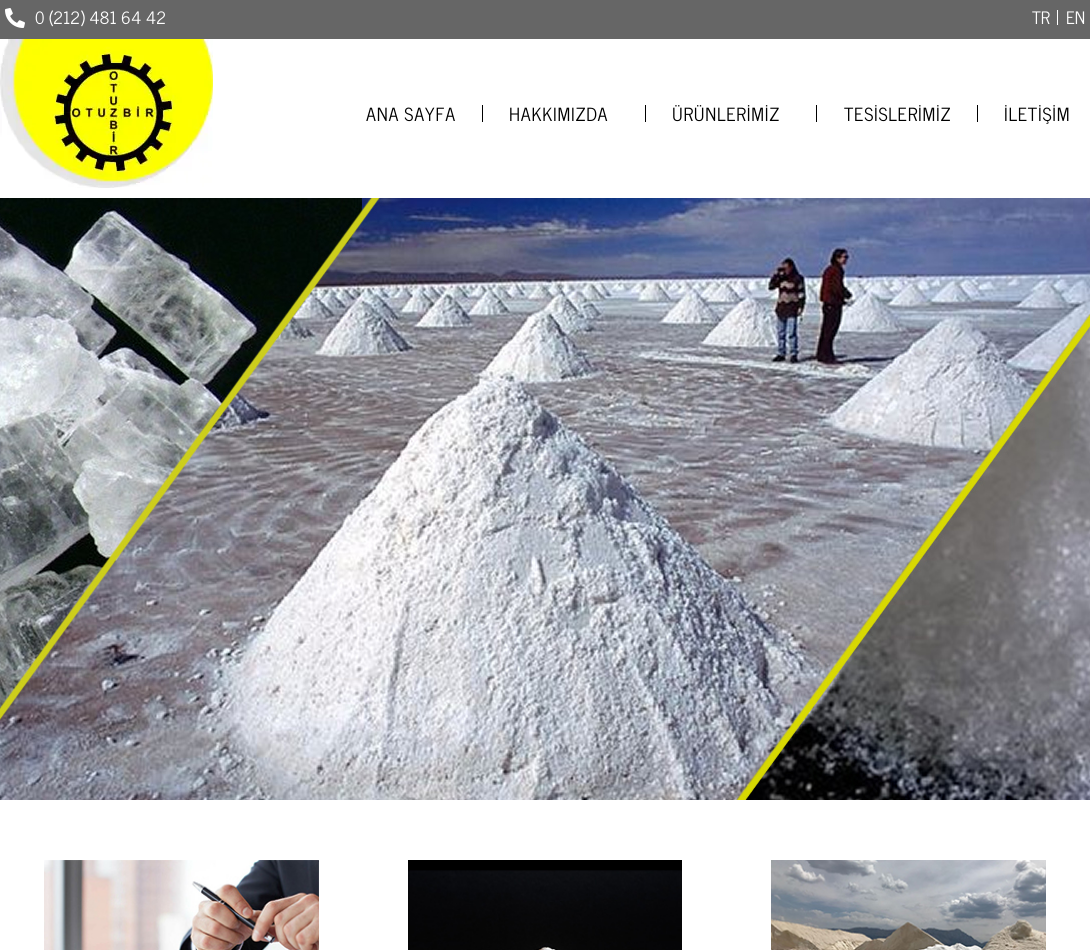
import math
import cairo

surface = cairo.ImageSurface(cairo.FORMAT_RGB24, 1090, 950)
ctx = cairo.Context(surface)
options = cairo.FontOptions()
options.set_hint_metrics(cairo.HINT_METRICS_OFF)
options.set_hint_style(cairo.HINT_STYLE_NONE)
ctx.set_font_options(options)
ctx.set_miter_limit(4)


def spaced_text(x, y, s, letter, word):
    ctx.move_to(x, y)
    for ch in s:
        ctx.show_text(ch)
        ctx.rel_move_to(letter + word * (ch == ' '), 0)


def picture(path, x, y, w, h):
    ctx.save()
    ctx.set_source_surface(cairo.ImageSurface.create_from_png(path), x, y)
    ctx.rectangle(x, y, w, h)
    ctx.fill()
    ctx.restore()


ctx.set_source_rgb(1, 1, 1)
ctx.paint()
ctx.set_source_rgb(0.4, 0.4, 0.4)
ctx.rectangle(0, 0, 1090, 39)
ctx.fill()
picture("img1.png", 5, 8, 20, 20)
ctx.select_font_face("News Cycle")
ctx.set_font_size(17)
ctx.set_source_rgb(1, 1, 1)
ctx.move_to(35, 24)
ctx.show_text("0 (212) 481 64 42")
ctx.move_to(1032, 24)
ctx.show_text("TR")
ctx.rectangle(1057, 10, 1, 15)
ctx.fill()
ctx.move_to(1066, 24)
ctx.show_text("EN")
picture("img2.png", 0, 39, 213, 149)
ctx.set_font_size(18)
ctx.set_source_rgb(0, 0, 0)
spaced_text(366, 121, "ANA SAYFA", 0.75, 0)
ctx.rectangle(482, 105, 1, 17)
ctx.fill()
spaced_text(509, 121, "HAKKIMIZDA", 0.75, 0)
ctx.rectangle(645, 105, 1, 17)
ctx.fill()
spaced_text(672, 121, "ÜRÜNLERİMİZ", 0.75, 0)
ctx.rectangle(816, 105, 1, 17)
ctx.fill()
spaced_text(844, 121, "TESİSLERİMİZ", 0.75, 0)
ctx.rectangle(977, 105, 1, 17)
ctx.fill()
spaced_text(1004, 121, "İLETİŞİM", 0.75, 0)
picture("img3.png", 0, 198, 1090, 602)
picture("img4.png", 44, 860, 275, 90)
picture("img5.png", 408, 860, 274, 90)
picture("img6.png", 771, 860, 275, 90)
surface.write_to_png("page.png")
